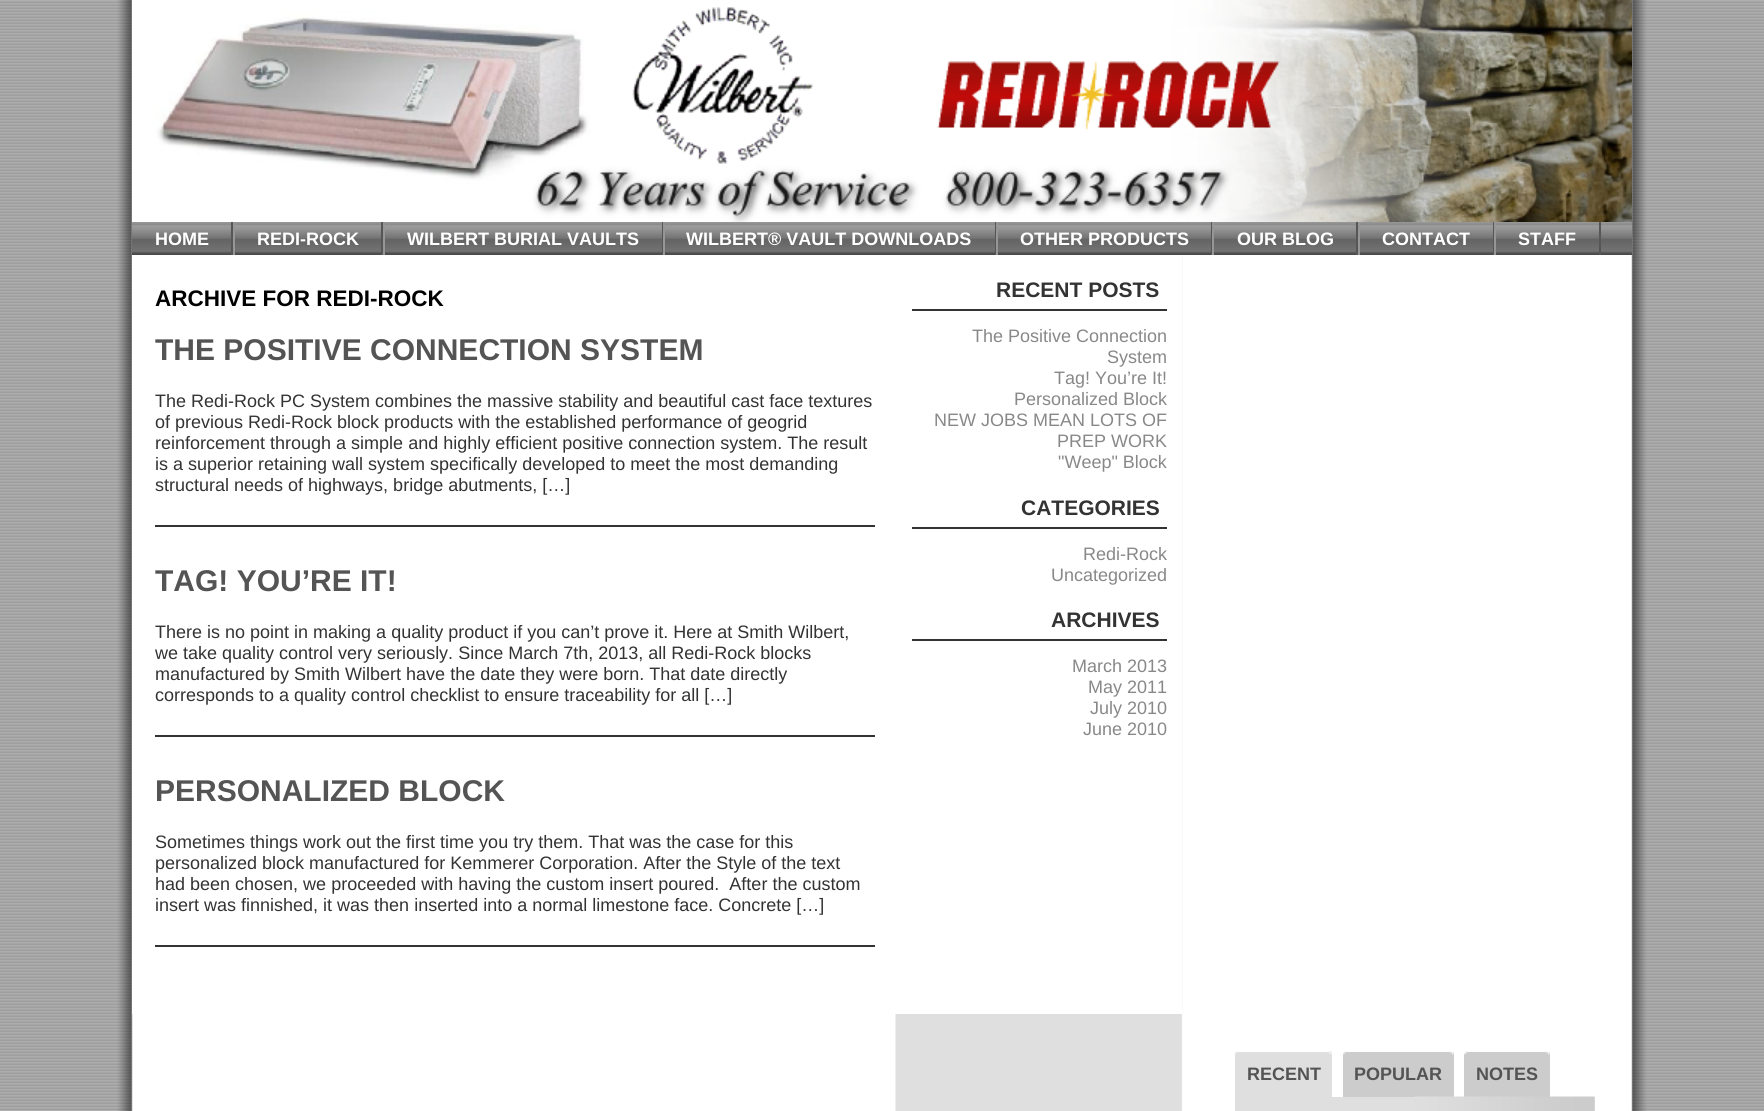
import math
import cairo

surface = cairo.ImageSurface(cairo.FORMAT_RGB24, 1764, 1111)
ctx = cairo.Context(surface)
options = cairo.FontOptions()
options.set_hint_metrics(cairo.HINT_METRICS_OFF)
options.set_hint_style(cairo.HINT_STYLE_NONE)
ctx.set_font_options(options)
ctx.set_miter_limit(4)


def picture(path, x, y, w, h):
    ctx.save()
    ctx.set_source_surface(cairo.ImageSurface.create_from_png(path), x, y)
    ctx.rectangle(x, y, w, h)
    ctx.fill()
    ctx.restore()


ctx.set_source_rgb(0.69, 0.69, 0.69)
ctx.paint()
picture("img1.png", 0, 1, 1764, 1109)
picture("img2.png", 117, 0, 1530, 1111)
picture("img3.png", 132, 0, 1500, 222)
ctx.set_source_rgb(0.286, 0.286, 0.286)
ctx.rectangle(132, 254, 1500, 1)
ctx.fill()
picture("img4.png", 132, 222, 1500, 32)
ctx.set_source_rgb(0.337, 0.337, 0.337)
ctx.rectangle(231, 222, 2, 33)
ctx.fill()
ctx.select_font_face("Liberation Sans", cairo.FONT_SLANT_NORMAL, cairo.FONT_WEIGHT_BOLD)
ctx.set_font_size(18)
ctx.set_source_rgb(1, 1, 1)
ctx.move_to(155, 245)
ctx.show_text("HOME")
ctx.set_source_rgb(0.337, 0.337, 0.337)
ctx.rectangle(381, 222, 2, 33)
ctx.fill()
ctx.set_source_rgb(0.588, 0.588, 0.588)
ctx.rectangle(233, 222, 2, 33)
ctx.fill()
ctx.set_source_rgb(1, 1, 1)
ctx.move_to(257, 245)
ctx.show_text("REDI-ROCK")
ctx.set_source_rgb(0.337, 0.337, 0.337)
ctx.rectangle(662, 222, 1, 33)
ctx.fill()
ctx.set_source_rgb(0.588, 0.588, 0.588)
ctx.rectangle(383, 222, 2, 33)
ctx.fill()
ctx.set_source_rgb(1, 1, 1)
ctx.move_to(407, 245)
ctx.show_text("WILBERT BURIAL VAULTS")
ctx.set_source_rgb(0.337, 0.337, 0.337)
ctx.rectangle(995, 222, 1, 33)
ctx.fill()
ctx.set_source_rgb(0.588, 0.588, 0.588)
ctx.rectangle(663, 222, 2, 33)
ctx.fill()
ctx.set_source_rgb(1, 1, 1)
ctx.move_to(686, 245)
ctx.show_text("WILBERT® VAULT DOWNLOADS")
ctx.set_source_rgb(0.337, 0.337, 0.337)
ctx.rectangle(1211, 222, 1, 33)
ctx.fill()
ctx.set_source_rgb(0.588, 0.588, 0.588)
ctx.rectangle(996, 222, 2, 33)
ctx.fill()
ctx.set_source_rgb(1, 1, 1)
ctx.move_to(1020, 245)
ctx.show_text("OTHER PRODUCTS")
ctx.set_source_rgb(0.337, 0.337, 0.337)
ctx.rectangle(1356, 222, 2, 33)
ctx.fill()
ctx.set_source_rgb(0.588, 0.588, 0.588)
ctx.rectangle(1212, 222, 2, 33)
ctx.fill()
ctx.set_source_rgb(1, 1, 1)
ctx.move_to(1237, 245)
ctx.show_text("OUR BLOG")
ctx.set_source_rgb(0.337, 0.337, 0.337)
ctx.rectangle(1493, 222, 1, 33)
ctx.fill()
ctx.set_source_rgb(0.588, 0.588, 0.588)
ctx.rectangle(1358, 222, 2, 33)
ctx.fill()
ctx.set_source_rgb(1, 1, 1)
ctx.move_to(1382, 245)
ctx.show_text("CONTACT")
ctx.set_source_rgb(0.337, 0.337, 0.337)
ctx.rectangle(1599, 222, 2, 33)
ctx.fill()
ctx.set_source_rgb(0.588, 0.588, 0.588)
ctx.rectangle(1494, 222, 2, 33)
ctx.fill()
ctx.set_source_rgb(1, 1, 1)
ctx.move_to(1518, 245)
ctx.show_text("STAFF")
ctx.rectangle(132, 255, 1050, 759)
ctx.fill()
ctx.set_font_size(22.5)
ctx.set_source_rgb(0, 0, 0)
ctx.move_to(155, 306)
ctx.show_text("ARCHIVE FOR REDI-ROCK")
ctx.set_font_size(30)
ctx.set_source_rgb(0.329, 0.329, 0.329)
ctx.move_to(155, 360)
ctx.show_text("THE POSITIVE CONNECTION SYSTEM")
ctx.select_font_face("Liberation Sans")
ctx.set_font_size(18)
ctx.set_source_rgb(0.2, 0.2, 0.2)
ctx.move_to(155, 407)
ctx.show_text("The Redi-Rock PC System combines the massive stability and beautiful cast face textures")
ctx.move_to(155, 428)
ctx.show_text("of previous Redi-Rock block products with the established performance of geogrid")
ctx.move_to(155, 449)
ctx.show_text("reinforcement through a simple and highly efficient positive connection system. The result")
ctx.move_to(155, 470)
ctx.show_text("is a superior retaining wall system specifically developed to meet the most demanding")
ctx.move_to(155, 491)
ctx.show_text("structural needs of highways, bridge abutments, […]")
ctx.rectangle(155, 525, 720, 2)
ctx.fill()
ctx.select_font_face("Liberation Sans", cairo.FONT_SLANT_NORMAL, cairo.FONT_WEIGHT_BOLD)
ctx.set_font_size(30)
ctx.set_source_rgb(0.329, 0.329, 0.329)
ctx.move_to(155, 591)
ctx.show_text("TAG! YOU’RE IT!")
ctx.select_font_face("Liberation Sans")
ctx.set_font_size(18)
ctx.set_source_rgb(0.2, 0.2, 0.2)
ctx.move_to(155, 638)
ctx.show_text("There is no point in making a quality product if you can’t prove it. Here at Smith Wilbert,")
ctx.move_to(155, 659)
ctx.show_text("we take quality control very seriously. Since March 7th, 2013, all Redi-Rock blocks")
ctx.move_to(155, 680)
ctx.show_text("manufactured by Smith Wilbert have the date they were born. That date directly")
ctx.move_to(155, 701)
ctx.show_text("corresponds to a quality control checklist to ensure traceability for all […]")
ctx.rectangle(155, 735, 720, 2)
ctx.fill()
ctx.select_font_face("Liberation Sans", cairo.FONT_SLANT_NORMAL, cairo.FONT_WEIGHT_BOLD)
ctx.set_font_size(30)
ctx.set_source_rgb(0.329, 0.329, 0.329)
ctx.move_to(155, 801)
ctx.show_text("PERSONALIZED BLOCK")
ctx.select_font_face("Liberation Sans")
ctx.set_font_size(18)
ctx.set_source_rgb(0.2, 0.2, 0.2)
ctx.move_to(155, 848)
ctx.show_text("Sometimes things work out the first time you try them. That was the case for this")
ctx.move_to(155, 869)
ctx.show_text("personalized block manufactured for Kemmerer Corporation. After the Style of the text")
ctx.move_to(155, 890)
ctx.show_text("had been chosen, we proceeded with having the custom insert poured.  After the custom")
ctx.move_to(155, 911)
ctx.show_text("insert was finnished, it was then inserted into a normal limestone face. Concrete […]")
ctx.rectangle(155, 945, 720, 2)
ctx.fill()
ctx.rectangle(912, 309, 255, 2)
ctx.fill()
ctx.select_font_face("Liberation Sans", cairo.FONT_SLANT_NORMAL, cairo.FONT_WEIGHT_BOLD)
ctx.set_font_size(21)
ctx.move_to(996, 297)
ctx.show_text("RECENT POSTS")
ctx.select_font_face("Liberation Sans")
ctx.set_font_size(18)
ctx.set_source_rgb(0.533, 0.533, 0.533)
ctx.move_to(972, 342)
ctx.show_text("The Positive Connection")
ctx.move_to(1107, 363)
ctx.show_text("System")
ctx.move_to(1054, 384)
ctx.show_text("Tag! You’re It!")
ctx.move_to(1014, 405)
ctx.show_text("Personalized Block")
ctx.move_to(934, 426)
ctx.show_text("NEW JOBS MEAN LOTS OF")
ctx.move_to(1057, 447)
ctx.show_text("PREP WORK")
ctx.move_to(1058, 468)
ctx.show_text("\"Weep\" Block")
ctx.set_source_rgb(0.2, 0.2, 0.2)
ctx.rectangle(912, 527, 255, 2)
ctx.fill()
ctx.select_font_face("Liberation Sans", cairo.FONT_SLANT_NORMAL, cairo.FONT_WEIGHT_BOLD)
ctx.set_font_size(21)
ctx.move_to(1021, 515)
ctx.show_text("CATEGORIES")
ctx.select_font_face("Liberation Sans")
ctx.set_font_size(18)
ctx.set_source_rgb(0.533, 0.533, 0.533)
ctx.move_to(1083, 560)
ctx.show_text("Redi-Rock")
ctx.move_to(1051, 581)
ctx.show_text("Uncategorized")
ctx.set_source_rgb(0.2, 0.2, 0.2)
ctx.rectangle(912, 639, 255, 2)
ctx.fill()
ctx.select_font_face("Liberation Sans", cairo.FONT_SLANT_NORMAL, cairo.FONT_WEIGHT_BOLD)
ctx.set_font_size(21)
ctx.move_to(1051, 627)
ctx.show_text("ARCHIVES")
ctx.select_font_face("Liberation Sans")
ctx.set_font_size(18)
ctx.set_source_rgb(0.533, 0.533, 0.533)
ctx.move_to(1072, 672)
ctx.show_text("March 2013")
ctx.move_to(1088, 693)
ctx.show_text("May 2011")
ctx.move_to(1090, 714)
ctx.show_text("July 2010")
ctx.move_to(1083, 735)
ctx.show_text("June 2010")
ctx.set_source_rgb(0.875, 0.875, 0.875)
ctx.rectangle(1235, 1052, 97, 45)
ctx.fill()
picture("img5.png", 1234, 1051, 4, 4)
ctx.set_source_rgb(0.8, 0.8, 0.8)
ctx.rectangle(1343, 1052, 111, 45)
ctx.fill()
picture("img6.png", 1342, 1051, 4, 4)
picture("img7.png", 1450, 1051, 4, 4)
ctx.rectangle(1464, 1052, 86, 45)
ctx.fill()
picture("img8.png", 1464, 1051, 3, 4)
picture("img7.png", 1546, 1051, 4, 4)
ctx.select_font_face("Liberation Sans", cairo.FONT_SLANT_NORMAL, cairo.FONT_WEIGHT_BOLD)
ctx.set_source_rgb(0.329, 0.329, 0.329)
ctx.move_to(1247, 1080)
ctx.show_text("RECENT")
ctx.set_source_rgb(0.937, 0.937, 0.937)
ctx.rectangle(1329, 1051, 3, 3)
ctx.fill()
ctx.set_source_rgb(0.329, 0.329, 0.329)
ctx.move_to(1354, 1080)
ctx.show_text("POPULAR")
ctx.move_to(1476, 1080)
ctx.show_text("NOTES")
ctx.set_source_rgb(0.875, 0.875, 0.875)
ctx.rectangle(1235, 1097, 360, 14)
ctx.fill()
picture("img9.png", 1414, 1096, 181, 15)
surface.write_to_png("page.png")
